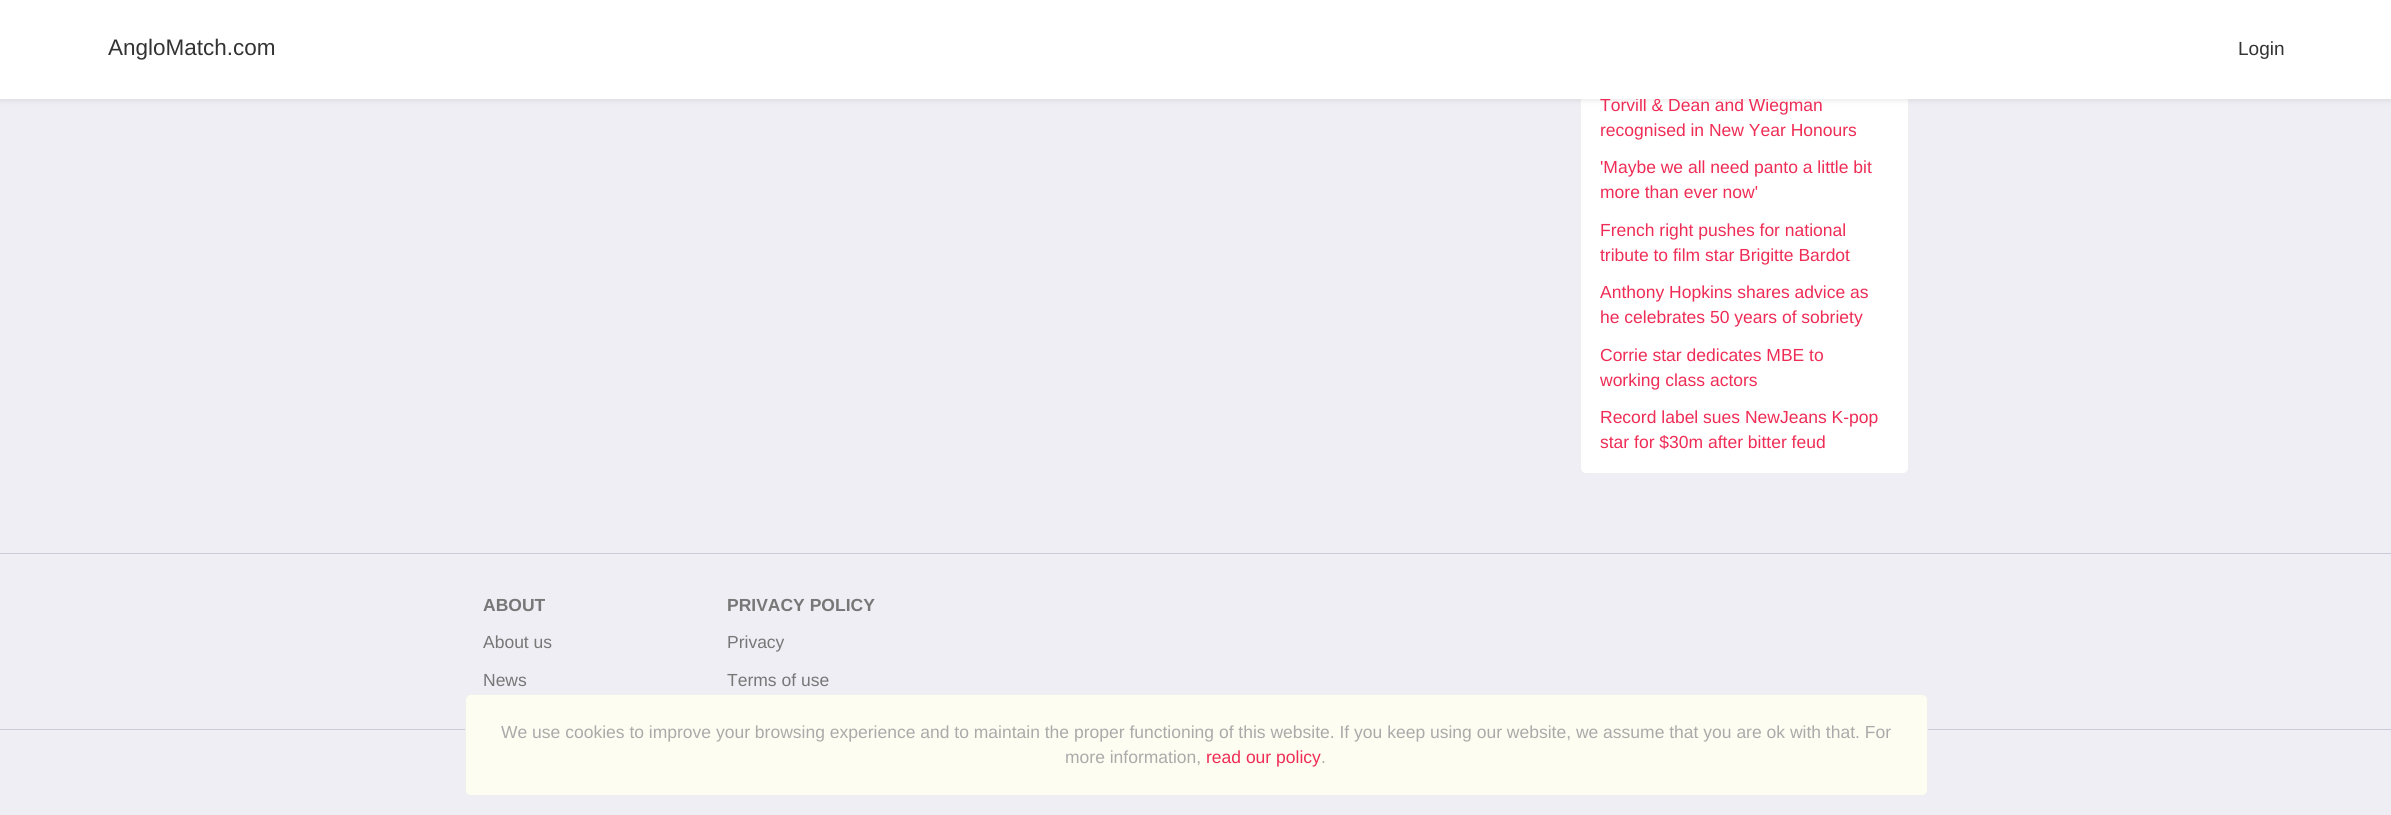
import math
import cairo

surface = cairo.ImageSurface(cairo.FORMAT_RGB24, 2391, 815)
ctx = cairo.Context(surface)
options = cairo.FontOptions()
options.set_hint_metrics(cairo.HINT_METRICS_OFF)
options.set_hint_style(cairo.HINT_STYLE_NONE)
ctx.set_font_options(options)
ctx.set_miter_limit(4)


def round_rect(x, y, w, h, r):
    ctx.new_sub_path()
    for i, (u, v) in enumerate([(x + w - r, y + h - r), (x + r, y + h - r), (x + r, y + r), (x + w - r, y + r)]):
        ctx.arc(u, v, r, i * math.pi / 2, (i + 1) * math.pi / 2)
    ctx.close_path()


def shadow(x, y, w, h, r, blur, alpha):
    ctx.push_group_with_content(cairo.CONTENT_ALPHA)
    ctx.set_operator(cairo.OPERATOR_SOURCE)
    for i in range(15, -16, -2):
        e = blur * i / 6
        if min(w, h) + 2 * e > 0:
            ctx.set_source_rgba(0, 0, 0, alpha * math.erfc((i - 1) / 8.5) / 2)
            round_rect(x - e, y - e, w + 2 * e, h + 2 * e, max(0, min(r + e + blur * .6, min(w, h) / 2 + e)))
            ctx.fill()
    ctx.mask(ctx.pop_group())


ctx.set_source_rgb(0.933, 0.933, 0.957)
ctx.paint()
ctx.set_source_rgb(1, 1, 1)
round_rect(1580.5, -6.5, 328, 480, 5.5)
ctx.fill_preserve()
ctx.set_source_rgb(0.937, 0.937, 0.937)
ctx.set_line_width(1)
ctx.stroke()
ctx.set_source_rgb(0.204, 0.204, 0.235)
shadow(0, 3, 2391, 98, 0, 2.5, 0.1)
ctx.select_font_face("Liberation Sans")
ctx.set_font_size(17.5)
ctx.set_source_rgb(0.933, 0.173, 0.333)
ctx.move_to(1600, 111)
ctx.show_text("Torvill & Dean and Wiegman")
ctx.set_source_rgb(1, 1, 1)
ctx.rectangle(0, 0, 2391, 99)
ctx.fill()
ctx.set_font_size(22.5)
ctx.set_source_rgb(0.2, 0.2, 0.2)
ctx.move_to(108, 55)
ctx.show_text("AngloMatch.com")
ctx.set_font_size(19)
ctx.move_to(2238, 55)
ctx.show_text("Login")
ctx.set_font_size(17.5)
ctx.set_source_rgb(0.933, 0.173, 0.333)
ctx.move_to(1600, 136)
ctx.show_text("recognised in New Year Honours")
ctx.move_to(1600, 173)
ctx.show_text("'Maybe we all need panto a little bit")
ctx.move_to(1600, 198)
ctx.show_text("more than ever now'")
ctx.move_to(1600, 236)
ctx.show_text("French right pushes for national")
ctx.move_to(1600, 261)
ctx.show_text("tribute to film star Brigitte Bardot")
ctx.move_to(1600, 298)
ctx.show_text("Anthony Hopkins shares advice as")
ctx.move_to(1600, 323)
ctx.show_text("he celebrates 50 years of sobriety")
ctx.move_to(1600, 361)
ctx.show_text("Corrie star dedicates MBE to")
ctx.move_to(1600, 386)
ctx.show_text("working class actors")
ctx.move_to(1600, 423)
ctx.show_text("Record label sues NewJeans K-pop")
ctx.move_to(1600, 448)
ctx.show_text("star for $30m after bitter feud")
ctx.set_source_rgb(0.792, 0.8, 0.847)
ctx.rectangle(0, 729, 2391, 1)
ctx.fill()
ctx.set_source_rgb(0.992, 0.992, 0.945)
round_rect(465.5, 694.5, 1462, 101, 5.5)
ctx.fill_preserve()
ctx.set_source_rgb(0.937, 0.937, 0.937)
ctx.stroke()
ctx.set_source_rgb(0.667, 0.667, 0.667)
ctx.move_to(501, 738)
ctx.show_text("We use cookies to improve your browsing experience and to maintain the proper functioning of this website. If you keep using our website, we assume that you are ok with that. For")
ctx.move_to(1065, 763)
ctx.show_text("more information,")
ctx.set_source_rgb(0.933, 0.173, 0.333)
ctx.move_to(1206, 763)
ctx.show_text("read our policy")
ctx.set_source_rgb(0.667, 0.667, 0.667)
ctx.move_to(1321, 763)
ctx.show_text(".")
ctx.set_source_rgb(0.792, 0.8, 0.847)
ctx.rectangle(0, 553, 2391, 1)
ctx.fill()
ctx.select_font_face("Liberation Sans", cairo.FONT_SLANT_NORMAL, cairo.FONT_WEIGHT_BOLD)
ctx.set_source_rgb(0.467, 0.467, 0.467)
ctx.move_to(483, 611)
ctx.show_text("ABOUT")
ctx.select_font_face("Liberation Sans")
ctx.move_to(483, 648)
ctx.show_text("About us")
ctx.move_to(483, 686)
ctx.show_text("News")
ctx.select_font_face("Liberation Sans", cairo.FONT_SLANT_NORMAL, cairo.FONT_WEIGHT_BOLD)
ctx.move_to(727, 611)
ctx.show_text("PRIVACY POLICY")
ctx.select_font_face("Liberation Sans")
ctx.move_to(727, 648)
ctx.show_text("Privacy")
ctx.move_to(727, 686)
ctx.show_text("Terms of use")
surface.write_to_png("page.png")
